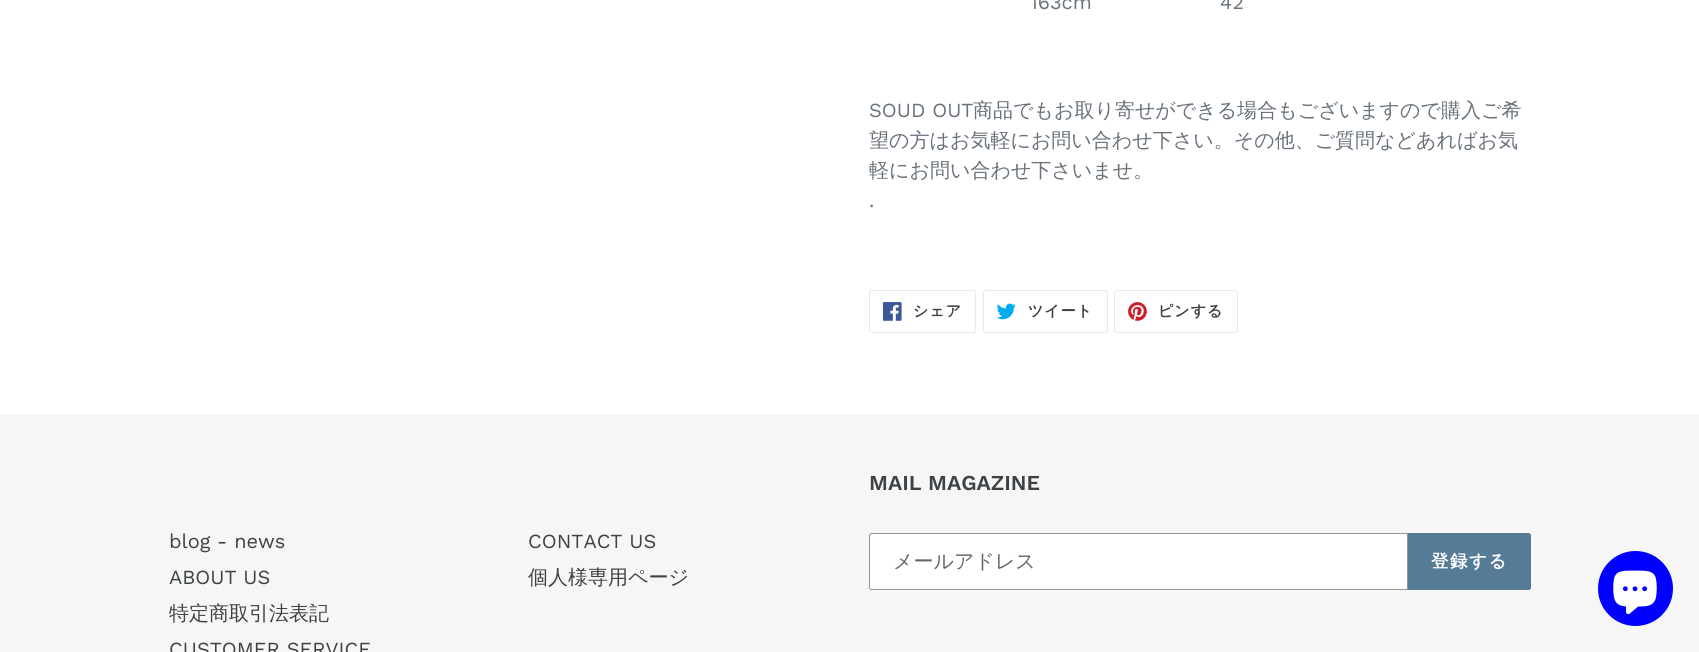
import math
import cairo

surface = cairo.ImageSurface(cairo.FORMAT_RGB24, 1699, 652)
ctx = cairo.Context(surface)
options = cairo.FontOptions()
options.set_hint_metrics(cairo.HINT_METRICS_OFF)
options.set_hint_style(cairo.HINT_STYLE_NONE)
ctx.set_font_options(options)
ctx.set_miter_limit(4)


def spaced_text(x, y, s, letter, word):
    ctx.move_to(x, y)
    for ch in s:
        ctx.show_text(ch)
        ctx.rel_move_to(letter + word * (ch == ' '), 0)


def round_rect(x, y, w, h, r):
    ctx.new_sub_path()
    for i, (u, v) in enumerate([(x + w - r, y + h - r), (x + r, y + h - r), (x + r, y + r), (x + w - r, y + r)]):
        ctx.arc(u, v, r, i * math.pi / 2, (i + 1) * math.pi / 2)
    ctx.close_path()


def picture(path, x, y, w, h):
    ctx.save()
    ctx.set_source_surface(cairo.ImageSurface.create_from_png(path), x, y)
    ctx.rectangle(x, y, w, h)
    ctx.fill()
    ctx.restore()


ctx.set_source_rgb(1, 1, 1)
ctx.paint()
ctx.select_font_face("Work Sans")
ctx.set_font_size(20)
ctx.set_source_rgb(0.412, 0.447, 0.482)
ctx.move_to(1030, 9)
ctx.show_text("163cm")
ctx.move_to(1220, 9)
ctx.show_text("42")
ctx.move_to(869, 117)
ctx.show_text("SOUD OUT")
ctx.select_font_face("WenQuanYi Zen Hei Medium")
ctx.move_to(973, 117)
ctx.show_text("商品でもお取り寄せができる場合もございますので購入ご希")
ctx.move_to(869, 147)
ctx.show_text("望の方はお気軽にお問い合わせ下さい。その他、ご質問などあればお気")
ctx.move_to(869, 177)
ctx.show_text("軽にお問い合わせ下さいませ。")
ctx.select_font_face("Work Sans")
ctx.move_to(869, 207)
ctx.show_text(".")
round_rect(869.5, 290.5, 106, 42, 2)
ctx.set_source_rgb(0.91, 0.914, 0.922)
ctx.set_line_width(1)
ctx.stroke()
picture("img1.png", 883, 302, 19, 19)
ctx.select_font_face("WenQuanYi Zen Hei", cairo.FONT_SLANT_NORMAL, cairo.FONT_WEIGHT_BOLD)
ctx.set_font_size(15)
ctx.set_source_rgb(0.239, 0.259, 0.275)
spaced_text(913, 316, "シェア", 1, 0)
round_rect(983.5, 290.5, 124, 42, 2)
ctx.set_source_rgb(0.91, 0.914, 0.922)
ctx.stroke()
picture("img2.png", 996, 303, 20, 17)
ctx.set_source_rgb(0.239, 0.259, 0.275)
spaced_text(1028, 316, "ツイート", 1, 0)
round_rect(1114.5, 290.5, 123, 42, 2)
ctx.set_source_rgb(0.91, 0.914, 0.922)
ctx.stroke()
picture("img3.png", 1128, 302, 19, 19)
ctx.set_source_rgb(0.239, 0.259, 0.275)
spaced_text(1158, 316, "ピンする", 1, 0)
ctx.set_source_rgb(0.961, 0.961, 0.961)
ctx.rectangle(0, 414, 1699, 238)
ctx.fill()
ctx.select_font_face("Work Sans SemiBold")
ctx.set_font_size(21.25)
ctx.set_source_rgb(0.239, 0.259, 0.275)
ctx.move_to(869, 490)
ctx.show_text("MAIL MAGAZINE")
ctx.set_source_rgb(1, 1, 1)
ctx.new_path()
ctx.move_to(871.5, 533.5)
ctx.line_to(1407.5, 533.5)
ctx.line_to(1407.5, 589.5)
ctx.line_to(871.5, 589.5)
ctx.curve_to(870.5, 589.5, 869.5, 588.5, 869.5, 587.5)
ctx.line_to(869.5, 535.5)
ctx.curve_to(869.5, 534.5, 870.5, 533.5, 871.5, 533.5)
ctx.close_path()
ctx.fill_preserve()
ctx.set_source_rgb(0.58, 0.58, 0.58)
ctx.stroke()
ctx.select_font_face("WenQuanYi Zen Hei Medium")
ctx.set_font_size(20)
ctx.set_source_rgb(0.4, 0.4, 0.4)
ctx.move_to(893, 568)
ctx.show_text("メールアドレス")
ctx.set_source_rgb(0.333, 0.482, 0.592)
ctx.new_path()
ctx.move_to(1408, 533)
ctx.line_to(1528.5, 533)
ctx.curve_to(1530, 533, 1531, 534, 1531, 535.5)
ctx.line_to(1531, 587.5)
ctx.curve_to(1531, 589, 1530, 590, 1528.5, 590)
ctx.line_to(1408, 590)
ctx.close_path()
ctx.fill()
ctx.select_font_face("WenQuanYi Zen Hei", cairo.FONT_SLANT_NORMAL, cairo.FONT_WEIGHT_BOLD)
ctx.set_font_size(17.5)
ctx.set_source_rgb(1, 1, 1)
spaced_text(1431, 567, "登録する", 1.5, 0)
ctx.select_font_face("Work Sans")
ctx.set_font_size(20)
ctx.set_source_rgb(0.239, 0.259, 0.275)
ctx.move_to(169, 548)
ctx.show_text("blog - news")
ctx.move_to(169, 584)
ctx.show_text("ABOUT US")
ctx.select_font_face("WenQuanYi Zen Hei Medium")
ctx.move_to(169, 620)
ctx.show_text("特定商取引法表記")
ctx.select_font_face("Work Sans")
ctx.move_to(169, 656)
ctx.show_text("CUSTOMER SERVICE")
ctx.move_to(528, 548)
ctx.show_text("CONTACT US")
ctx.select_font_face("WenQuanYi Zen Hei Medium")
ctx.move_to(528, 584)
ctx.show_text("個人様専用ページ")
ctx.set_source_rgb(0, 0, 1)
ctx.new_path()
ctx.arc(1635.5, 588.5, 37.5, 0, 2 * math.pi)
ctx.fill()
picture("img4.png", 1613, 570, 44, 45)
surface.write_to_png("page.png")
